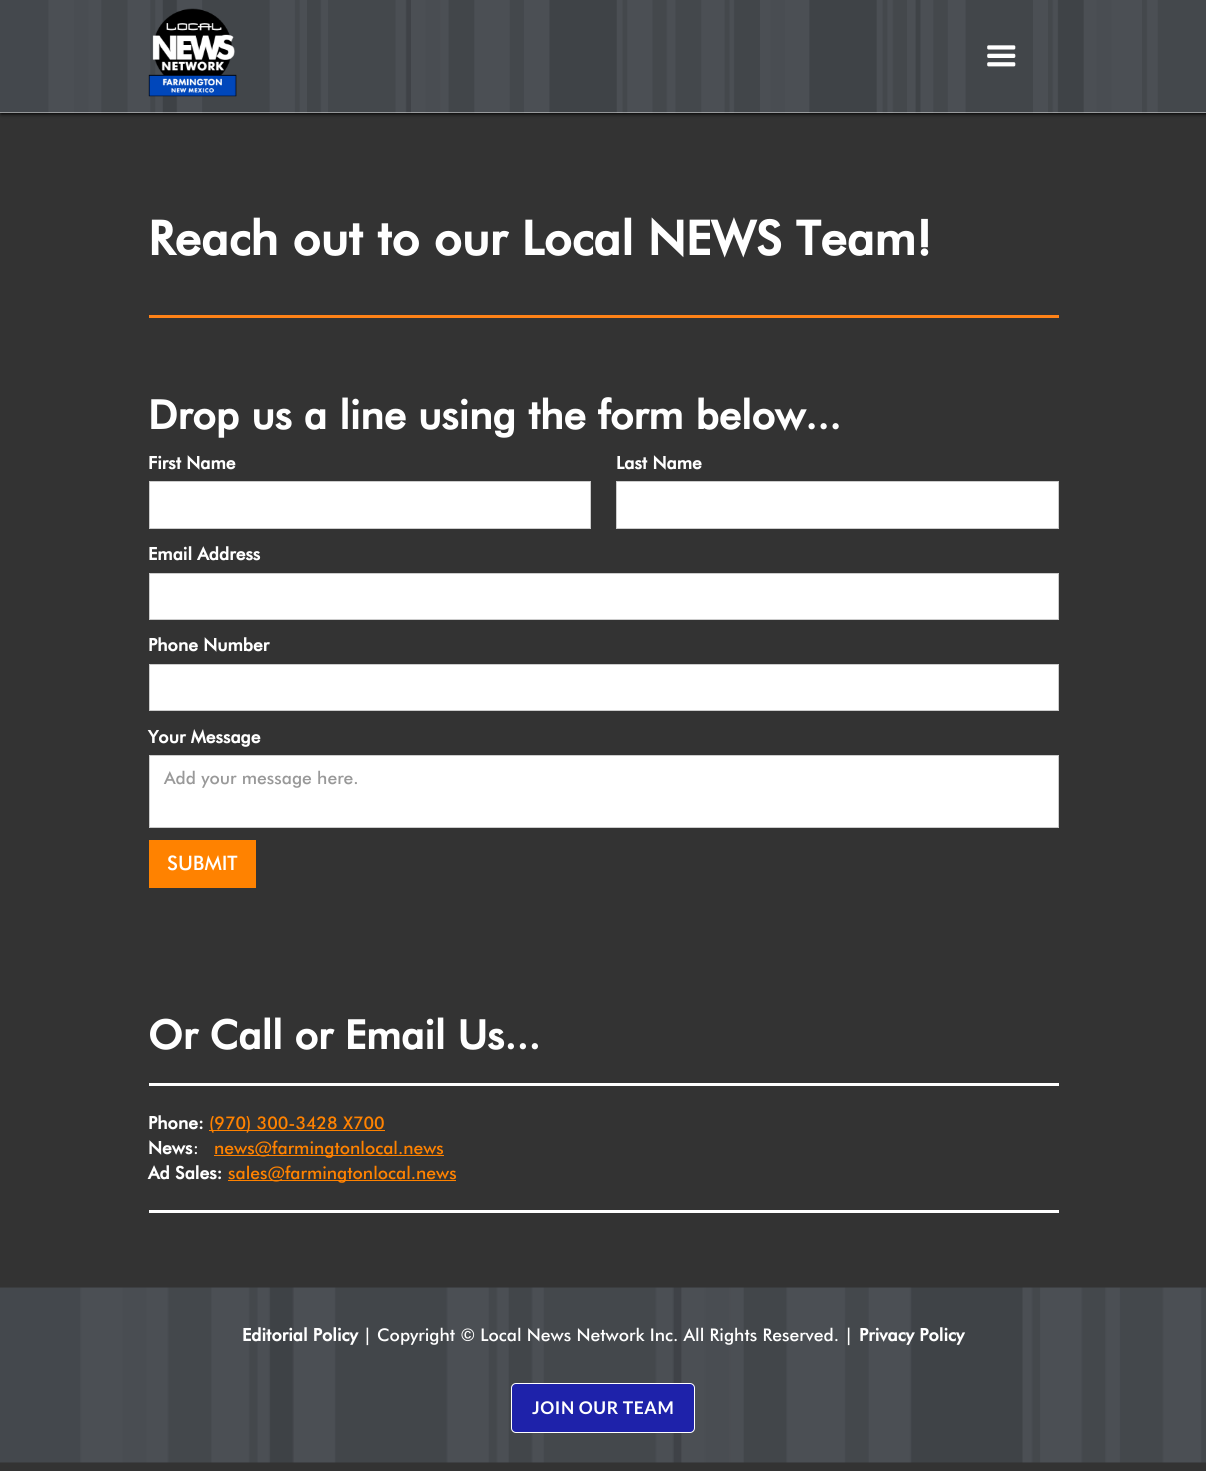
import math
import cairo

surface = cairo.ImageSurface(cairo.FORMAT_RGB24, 1206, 1471)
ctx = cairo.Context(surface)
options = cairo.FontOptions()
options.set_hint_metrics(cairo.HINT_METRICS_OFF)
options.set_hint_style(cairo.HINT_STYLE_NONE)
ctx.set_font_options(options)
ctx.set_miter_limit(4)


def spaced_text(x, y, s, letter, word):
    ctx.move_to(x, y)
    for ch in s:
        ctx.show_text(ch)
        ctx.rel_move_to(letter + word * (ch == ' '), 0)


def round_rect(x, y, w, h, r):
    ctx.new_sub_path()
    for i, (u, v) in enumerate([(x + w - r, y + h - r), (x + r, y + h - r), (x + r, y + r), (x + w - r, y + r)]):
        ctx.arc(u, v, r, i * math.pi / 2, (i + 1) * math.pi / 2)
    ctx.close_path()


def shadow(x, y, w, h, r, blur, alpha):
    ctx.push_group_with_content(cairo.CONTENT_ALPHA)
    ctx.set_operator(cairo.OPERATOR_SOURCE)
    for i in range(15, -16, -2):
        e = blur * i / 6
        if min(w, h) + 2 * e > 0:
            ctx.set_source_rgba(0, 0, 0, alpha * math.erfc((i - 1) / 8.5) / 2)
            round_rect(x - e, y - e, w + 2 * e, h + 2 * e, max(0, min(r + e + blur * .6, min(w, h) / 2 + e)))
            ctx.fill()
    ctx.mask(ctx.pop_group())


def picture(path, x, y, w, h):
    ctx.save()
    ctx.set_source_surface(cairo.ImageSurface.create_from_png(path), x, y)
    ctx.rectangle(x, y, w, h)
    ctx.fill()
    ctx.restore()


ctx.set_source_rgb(0.2, 0.2, 0.2)
ctx.paint()
ctx.set_source_rgb(0, 0, 0)
shadow(1, 1, 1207, 113, 0, 2, 1)
ctx.set_source_rgb(0.867, 0.867, 0.867)
ctx.rectangle(0, 112, 1206, 1)
ctx.fill()
picture("img1.png", 0, 0, 1206, 113)
picture("img2.png", 148, 8, 89, 89)
picture("img3.png", 987, 45, 29, 22)
ctx.set_source_rgb(1, 0.51, 0.09)
ctx.rectangle(149, 315, 910, 3)
ctx.fill()
ctx.select_font_face("Futura", cairo.FONT_SLANT_NORMAL, cairo.FONT_WEIGHT_BOLD)
ctx.set_font_size(47.5)
ctx.set_source_rgb(1, 1, 1)
ctx.move_to(148, 255)
ctx.show_text("Reach out to our Local NEWS Team!")
ctx.set_font_size(40)
ctx.move_to(148, 429)
ctx.show_text("Drop us a line using the form below...")
ctx.set_font_size(17.5)
ctx.move_to(148, 469)
ctx.show_text("First Name")
ctx.rectangle(149.5, 481.5, 441, 47)
ctx.fill_preserve()
ctx.set_source_rgb(0.8, 0.8, 0.8)
ctx.set_line_width(1)
ctx.stroke()
ctx.set_source_rgb(1, 1, 1)
ctx.move_to(616, 469)
ctx.show_text("Last Name")
ctx.rectangle(616.5, 481.5, 442, 47)
ctx.fill_preserve()
ctx.set_source_rgb(0.8, 0.8, 0.8)
ctx.stroke()
ctx.set_source_rgb(1, 1, 1)
ctx.move_to(148, 560)
ctx.show_text("Email Address")
ctx.rectangle(149.5, 573.5, 909, 46)
ctx.fill_preserve()
ctx.set_source_rgb(0.8, 0.8, 0.8)
ctx.stroke()
ctx.set_source_rgb(1, 1, 1)
ctx.move_to(148, 651)
ctx.show_text("Phone Number")
ctx.rectangle(149.5, 664.5, 909, 46)
ctx.fill_preserve()
ctx.set_source_rgb(0.8, 0.8, 0.8)
ctx.stroke()
ctx.set_source_rgb(1, 1, 1)
ctx.move_to(148, 743)
ctx.show_text("Your Message")
ctx.rectangle(149.5, 755.5, 909, 72)
ctx.fill_preserve()
ctx.set_source_rgb(0.8, 0.8, 0.8)
ctx.stroke()
ctx.select_font_face("Futura Medium")
ctx.set_source_rgb(0.6, 0.6, 0.6)
ctx.move_to(164, 784)
ctx.show_text("Add your message here.")
ctx.set_source_rgb(1, 0.51, 0)
ctx.rectangle(149, 840, 107, 48)
ctx.fill()
ctx.set_font_size(20)
ctx.set_source_rgb(1, 1, 1)
ctx.move_to(167, 870)
ctx.show_text("SUBMIT")
ctx.select_font_face("Futura", cairo.FONT_SLANT_NORMAL, cairo.FONT_WEIGHT_BOLD)
ctx.set_font_size(40)
ctx.move_to(148, 1049)
ctx.show_text("Or Call or Email Us...")
ctx.rectangle(149, 1083, 910, 3)
ctx.fill()
ctx.rectangle(149, 1210, 910, 3)
ctx.fill()
ctx.set_font_size(17.5)
ctx.move_to(148, 1129)
ctx.show_text("Phone:")
ctx.set_source_rgb(1, 0.51, 0)
ctx.rectangle(209, 1130, 176, 1)
ctx.fill()
ctx.select_font_face("Futura Medium")
ctx.move_to(209, 1129)
ctx.show_text("(970) 300-3428 X700")
ctx.select_font_face("Futura", cairo.FONT_SLANT_NORMAL, cairo.FONT_WEIGHT_BOLD)
ctx.set_source_rgb(1, 1, 1)
ctx.move_to(148, 1154)
ctx.show_text("News")
ctx.select_font_face("Futura Medium")
ctx.move_to(193, 1154)
ctx.show_text(":")
ctx.set_source_rgb(1, 0.51, 0)
ctx.rectangle(214, 1155, 230, 1)
ctx.fill()
ctx.move_to(214, 1154)
ctx.show_text("news@farmingtonlocal.news")
ctx.select_font_face("Futura", cairo.FONT_SLANT_NORMAL, cairo.FONT_WEIGHT_BOLD)
ctx.set_source_rgb(1, 1, 1)
ctx.move_to(148, 1179)
ctx.show_text("Ad Sales:")
ctx.set_source_rgb(1, 0.51, 0)
ctx.rectangle(228, 1180, 228, 1)
ctx.fill()
ctx.select_font_face("Futura Medium")
ctx.move_to(228, 1179)
ctx.show_text("sales@farmingtonlocal.news")
picture("img4.png", 0, 1287, 1206, 176)
ctx.select_font_face("Futura", cairo.FONT_SLANT_NORMAL, cairo.FONT_WEIGHT_BOLD)
ctx.set_source_rgb(1, 1, 1)
ctx.move_to(242, 1341)
ctx.show_text("Editorial Policy")
ctx.select_font_face("Futura Medium")
ctx.move_to(363, 1341)
ctx.show_text("| Copyright © Local News Network Inc. All Rights Reserved. |")
ctx.select_font_face("Futura", cairo.FONT_SLANT_NORMAL, cairo.FONT_WEIGHT_BOLD)
ctx.move_to(859, 1341)
ctx.show_text("Privacy Policy")
ctx.set_source_rgb(0.118, 0.133, 0.667)
round_rect(511.5, 1383.5, 183, 49, 4.5)
ctx.fill_preserve()
ctx.set_source_rgb(1, 1, 1)
ctx.stroke()
ctx.select_font_face("Lato", cairo.FONT_SLANT_NORMAL, cairo.FONT_WEIGHT_BOLD)
spaced_text(532, 1414, "JOIN OUR TEAM", 0.6, 0)
surface.write_to_png("page.png")
